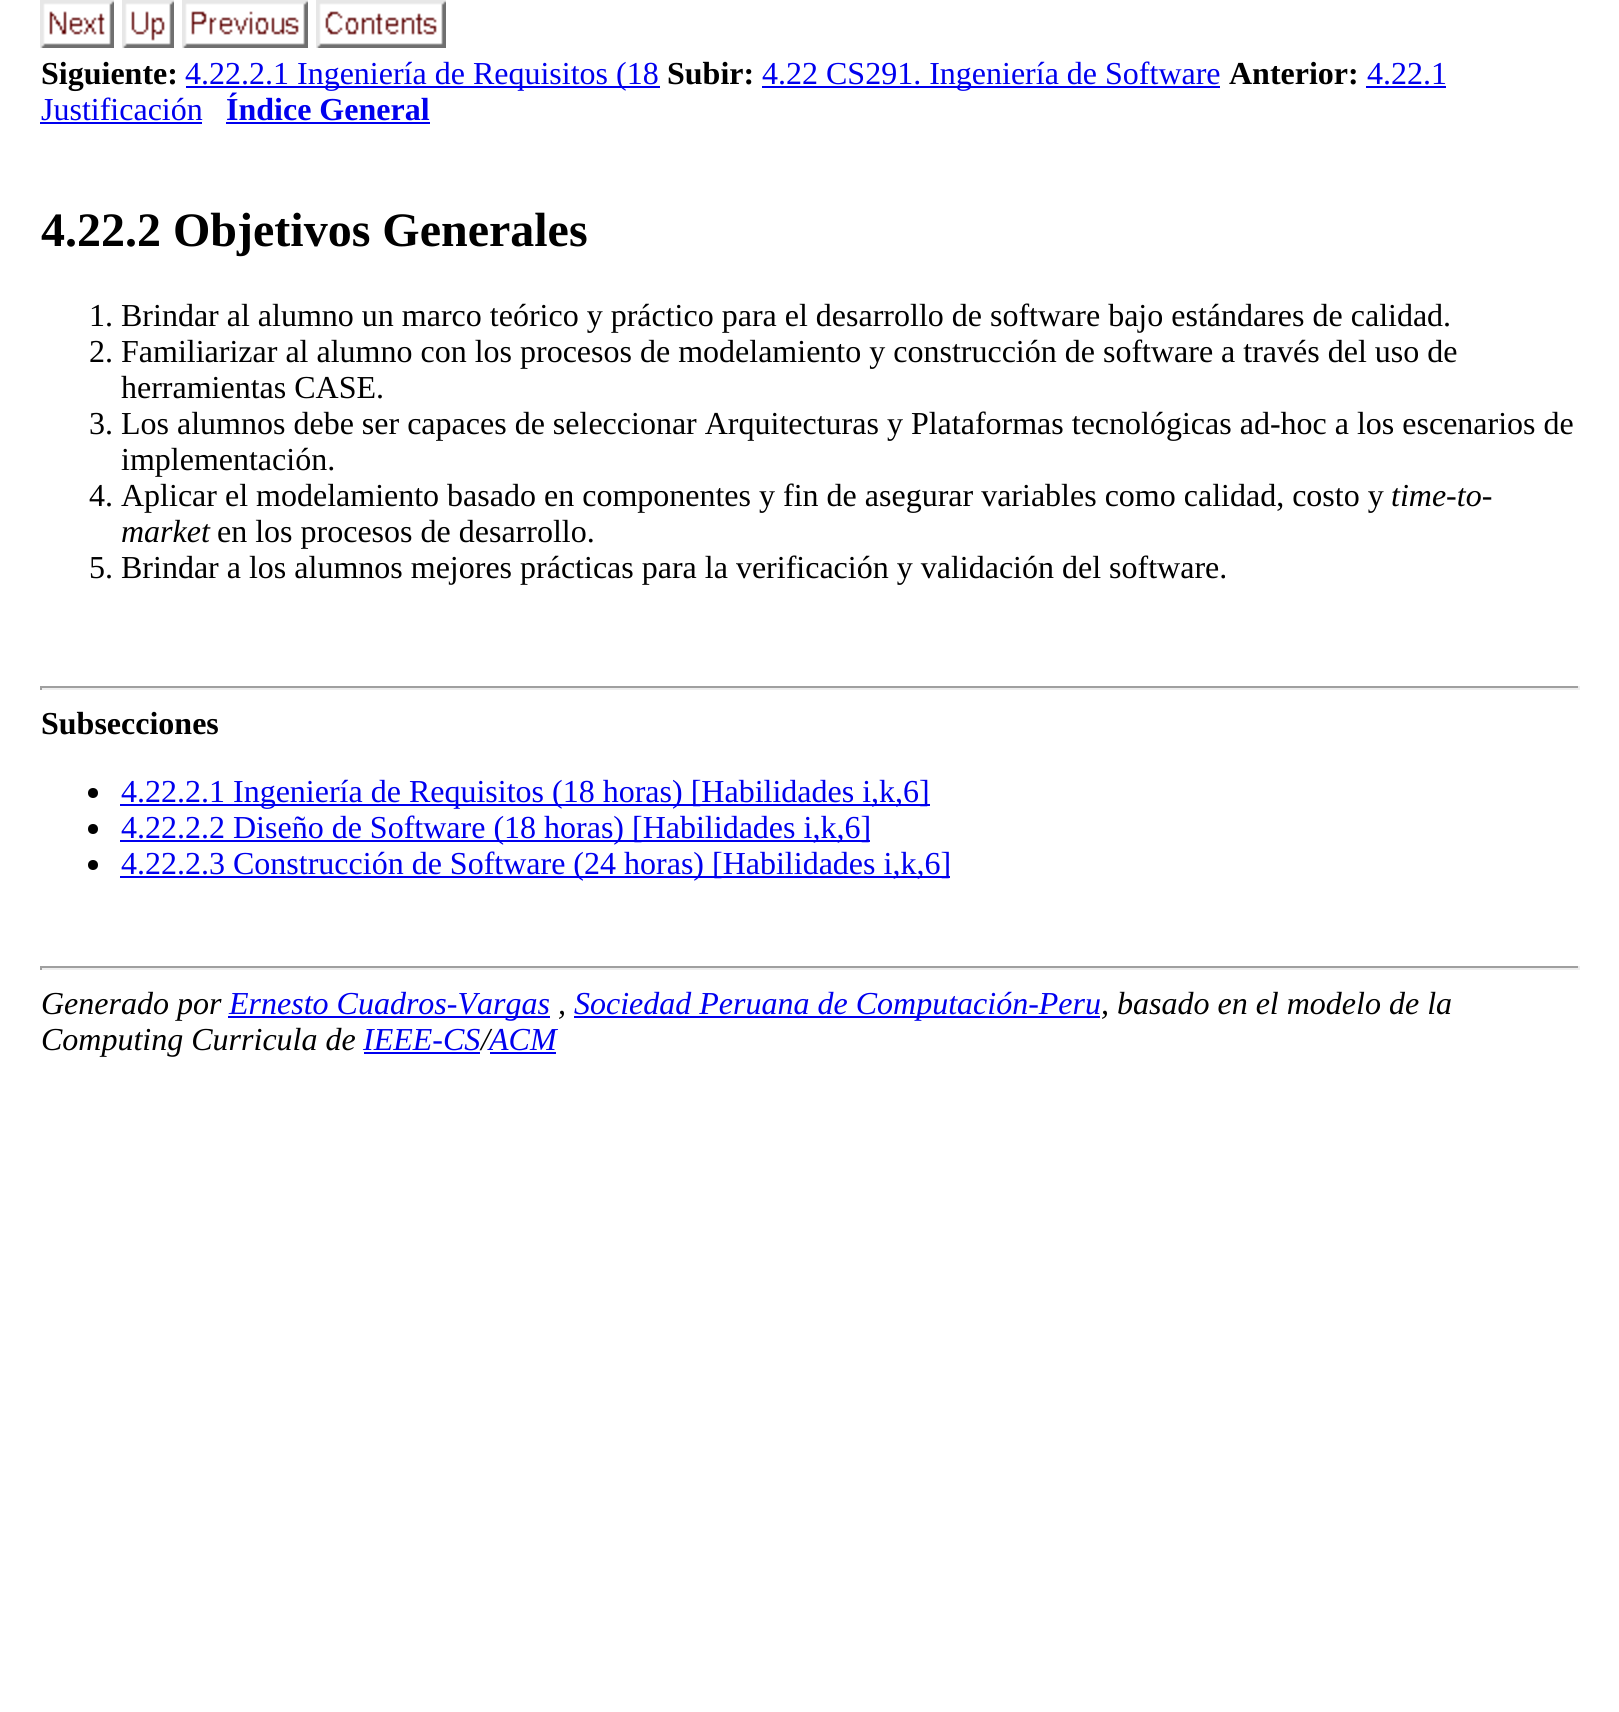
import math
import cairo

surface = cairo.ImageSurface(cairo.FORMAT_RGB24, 1619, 1712)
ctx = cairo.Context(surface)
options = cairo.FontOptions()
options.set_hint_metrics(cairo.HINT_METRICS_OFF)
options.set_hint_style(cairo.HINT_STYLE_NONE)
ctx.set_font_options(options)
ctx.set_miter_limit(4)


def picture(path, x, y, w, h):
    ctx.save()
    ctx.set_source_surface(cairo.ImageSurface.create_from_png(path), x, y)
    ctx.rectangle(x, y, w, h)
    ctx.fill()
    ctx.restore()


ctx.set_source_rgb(1, 1, 1)
ctx.paint()
picture("img1.png", 40, 0, 74, 48)
picture("img2.png", 122, 0, 52, 48)
picture("img3.png", 182, 0, 126, 48)
picture("img4.png", 316, 0, 130, 48)
ctx.select_font_face("Liberation Serif", cairo.FONT_SLANT_NORMAL, cairo.FONT_WEIGHT_BOLD)
ctx.set_font_size(32)
ctx.set_source_rgb(0, 0, 0)
ctx.move_to(41, 84)
ctx.show_text("Siguiente:")
ctx.set_source_rgb(0, 0, 0.933)
ctx.rectangle(186, 86, 474, 2)
ctx.fill()
ctx.select_font_face("Liberation Serif")
ctx.move_to(185, 84)
ctx.show_text("4.22.2.1 Ingeniería de Requisitos (18")
ctx.select_font_face("Liberation Serif", cairo.FONT_SLANT_NORMAL, cairo.FONT_WEIGHT_BOLD)
ctx.set_source_rgb(0, 0, 0)
ctx.move_to(667, 84)
ctx.show_text("Subir:")
ctx.set_source_rgb(0, 0, 0.933)
ctx.rectangle(762, 86, 458, 2)
ctx.fill()
ctx.select_font_face("Liberation Serif")
ctx.move_to(762, 84)
ctx.show_text("4.22 CS291. Ingeniería de Software")
ctx.select_font_face("Liberation Serif", cairo.FONT_SLANT_NORMAL, cairo.FONT_WEIGHT_BOLD)
ctx.set_source_rgb(0, 0, 0)
ctx.move_to(1229, 84)
ctx.show_text("Anterior:")
ctx.select_font_face("Liberation Serif")
ctx.set_source_rgb(0, 0, 0.933)
ctx.move_to(1367, 84)
ctx.show_text("4.22.1")
ctx.rectangle(1366, 86, 80, 2)
ctx.fill()
ctx.move_to(41, 120)
ctx.show_text("Justificación")
ctx.rectangle(40, 122, 162, 2)
ctx.fill()
ctx.select_font_face("Liberation Serif", cairo.FONT_SLANT_NORMAL, cairo.FONT_WEIGHT_BOLD)
ctx.move_to(226, 120)
ctx.show_text("Índice General")
ctx.rectangle(226, 122, 204, 2)
ctx.fill()
ctx.set_font_size(48)
ctx.set_source_rgb(0, 0, 0)
ctx.move_to(41, 246)
ctx.show_text("4.22.2 Objetivos Generales")
ctx.select_font_face("Liberation Serif")
ctx.set_font_size(32)
ctx.move_to(89, 326)
ctx.show_text("1. Brindar al alumno un marco teórico y práctico para el desarrollo de software bajo estándares de calidad.")
ctx.move_to(89, 362)
ctx.show_text("2. Familiarizar al alumno con los procesos de modelamiento y construcción de software a través del uso de")
ctx.move_to(121, 398)
ctx.show_text("herramientas CASE.")
ctx.move_to(89, 434)
ctx.show_text("3. Los alumnos debe ser capaces de seleccionar Arquitecturas y Plataformas tecnológicas ad-hoc a los escenarios de")
ctx.move_to(121, 470)
ctx.show_text("implementación.")
ctx.move_to(89, 506)
ctx.show_text("4. Aplicar el modelamiento basado en componentes y fin de asegurar variables como calidad, costo y")
ctx.select_font_face("Liberation Serif", cairo.FONT_SLANT_ITALIC)
ctx.move_to(1391, 506)
ctx.show_text("time-to-")
ctx.move_to(121, 542)
ctx.show_text("market")
ctx.select_font_face("Liberation Serif")
ctx.move_to(217, 542)
ctx.show_text("en los procesos de desarrollo.")
ctx.move_to(89, 578)
ctx.show_text("5. Brindar a los alumnos mejores prácticas para la verificación y validación del software.")
ctx.set_source_rgb(0.624, 0.624, 0.624)
ctx.rectangle(40, 686, 1540, 2)
ctx.fill()
ctx.set_source_rgb(0.933, 0.933, 0.933)
ctx.rectangle(1578, 686, 2, 4)
ctx.fill()
ctx.rectangle(40, 688, 1540, 2)
ctx.fill()
ctx.set_source_rgb(0.624, 0.624, 0.624)
ctx.rectangle(40, 686, 2, 4)
ctx.fill()
ctx.select_font_face("Liberation Serif", cairo.FONT_SLANT_NORMAL, cairo.FONT_WEIGHT_BOLD)
ctx.set_source_rgb(0, 0, 0)
ctx.move_to(41, 734)
ctx.show_text("Subsecciones")
ctx.new_path()
ctx.arc(93, 793, 5, 0, 2 * math.pi)
ctx.fill()
ctx.set_source_rgb(0, 0, 0.933)
ctx.rectangle(120, 804, 810, 2)
ctx.fill()
ctx.select_font_face("Liberation Serif")
ctx.move_to(121, 802)
ctx.show_text("4.22.2.1 Ingeniería de Requisitos (18 horas) [Habilidades i,k,6]")
ctx.set_source_rgb(0, 0, 0)
ctx.new_path()
ctx.arc(93, 829, 5, 0, 2 * math.pi)
ctx.fill()
ctx.set_source_rgb(0, 0, 0.933)
ctx.rectangle(120, 840, 750, 2)
ctx.fill()
ctx.move_to(121, 838)
ctx.show_text("4.22.2.2 Diseño de Software (18 horas) [Habilidades i,k,6]")
ctx.set_source_rgb(0, 0, 0)
ctx.new_path()
ctx.arc(93, 865, 5, 0, 2 * math.pi)
ctx.fill()
ctx.set_source_rgb(0, 0, 0.933)
ctx.rectangle(120, 876, 830, 2)
ctx.fill()
ctx.move_to(121, 874)
ctx.show_text("4.22.2.3 Construcción de Software (24 horas) [Habilidades i,k,6]")
ctx.set_source_rgb(0.624, 0.624, 0.624)
ctx.rectangle(40, 966, 1540, 2)
ctx.fill()
ctx.set_source_rgb(0.933, 0.933, 0.933)
ctx.rectangle(1578, 966, 2, 4)
ctx.fill()
ctx.rectangle(40, 968, 1540, 2)
ctx.fill()
ctx.set_source_rgb(0.624, 0.624, 0.624)
ctx.rectangle(40, 966, 2, 4)
ctx.fill()
ctx.select_font_face("Liberation Serif", cairo.FONT_SLANT_ITALIC)
ctx.set_source_rgb(0, 0, 0)
ctx.move_to(41, 1014)
ctx.show_text("Generado por")
ctx.set_source_rgb(0, 0, 0.933)
ctx.rectangle(228, 1016, 322, 2)
ctx.fill()
ctx.move_to(229, 1014)
ctx.show_text("Ernesto Cuadros-Vargas")
ctx.set_source_rgb(0, 0, 0)
ctx.move_to(558, 1014)
ctx.show_text(",")
ctx.set_source_rgb(0, 0, 0.933)
ctx.rectangle(574, 1016, 526, 2)
ctx.fill()
ctx.move_to(574, 1014)
ctx.show_text("Sociedad Peruana de Computación-Peru")
ctx.set_source_rgb(0, 0, 0)
ctx.move_to(1101, 1014)
ctx.show_text(", basado en el modelo de la")
ctx.move_to(41, 1050)
ctx.show_text("Computing Curricula de")
ctx.set_source_rgb(0, 0, 0.933)
ctx.move_to(363, 1050)
ctx.show_text("IEEE-CS")
ctx.rectangle(364, 1052, 116, 2)
ctx.fill()
ctx.set_source_rgb(0, 0, 0)
ctx.move_to(481, 1050)
ctx.show_text("/")
ctx.set_source_rgb(0, 0, 0.933)
ctx.rectangle(490, 1052, 66, 2)
ctx.fill()
ctx.move_to(489, 1050)
ctx.show_text("ACM")
surface.write_to_png("page.png")
